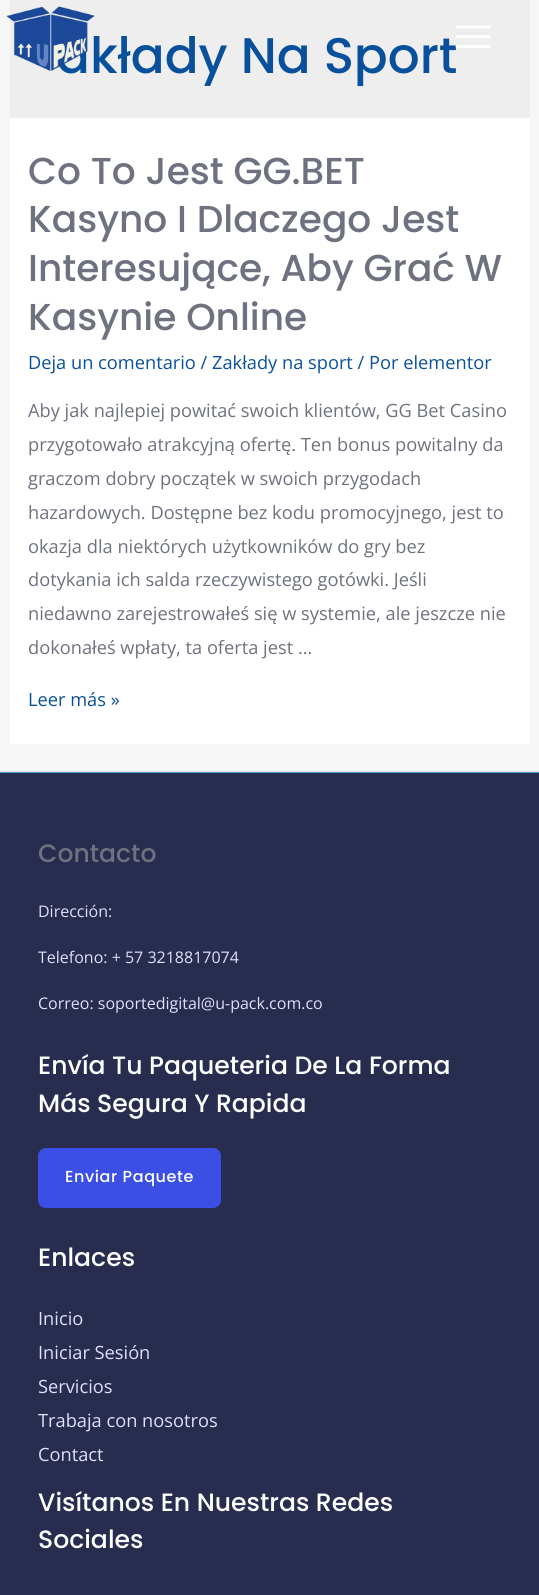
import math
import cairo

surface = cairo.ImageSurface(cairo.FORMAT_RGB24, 539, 1595)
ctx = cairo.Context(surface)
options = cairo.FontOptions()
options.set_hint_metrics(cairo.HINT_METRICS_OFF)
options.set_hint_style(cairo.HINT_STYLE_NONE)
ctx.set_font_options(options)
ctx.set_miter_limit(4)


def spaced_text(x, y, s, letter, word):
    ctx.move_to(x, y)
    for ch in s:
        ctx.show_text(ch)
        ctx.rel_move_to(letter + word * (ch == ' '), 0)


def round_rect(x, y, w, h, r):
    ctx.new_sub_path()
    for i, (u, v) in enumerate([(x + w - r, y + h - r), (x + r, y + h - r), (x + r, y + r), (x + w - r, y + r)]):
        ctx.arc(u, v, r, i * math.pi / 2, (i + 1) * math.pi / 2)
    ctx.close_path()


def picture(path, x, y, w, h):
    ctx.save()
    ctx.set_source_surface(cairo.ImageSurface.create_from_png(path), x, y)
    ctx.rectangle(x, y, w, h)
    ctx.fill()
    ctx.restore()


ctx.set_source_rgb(0.961, 0.961, 0.961)
ctx.paint()
ctx.set_source_rgb(0.933, 0.933, 0.933)
ctx.rectangle(10, 0, 520, 118)
ctx.fill()
ctx.select_font_face("Poppins Medium")
ctx.set_font_size(50)
ctx.set_source_rgb(0.039, 0.314, 0.612)
ctx.move_to(56, 73)
ctx.show_text("akłady Na Sport")
picture("img1.png", 6, 6, 89, 65)
picture("img2.png", 455, 25, 36, 23)
ctx.set_source_rgb(1, 1, 1)
ctx.rectangle(10, 118, 520, 626)
ctx.fill()
ctx.set_font_size(37.5)
ctx.set_source_rgb(0.431, 0.443, 0.502)
ctx.move_to(28, 184)
ctx.show_text("Co To Jest GG.BET")
ctx.move_to(28, 232)
ctx.show_text("Kasyno I Dlaczego Jest")
ctx.move_to(28, 281)
ctx.show_text("Interesujące, Aby Grać W")
ctx.move_to(28, 330)
ctx.show_text("Kasynie Online")
ctx.select_font_face("Open Sans")
ctx.set_font_size(18.25)
ctx.set_source_rgb(0.039, 0.314, 0.612)
ctx.move_to(28, 369)
ctx.show_text("Deja un comentario / Zakłady na sport / Por elementor")
ctx.set_source_rgb(0.431, 0.443, 0.502)
ctx.move_to(28, 417)
ctx.show_text("Aby jak najlepiej powitać swoich klientów, GG Bet Casino")
ctx.move_to(28, 451)
ctx.show_text("przygotowało atrakcyjną ofertę. Ten bonus powitalny da")
ctx.move_to(28, 485)
ctx.show_text("graczom dobry początek w swoich przygodach")
ctx.move_to(28, 519)
ctx.show_text("hazardowych. Dostępne bez kodu promocyjnego, jest to")
ctx.move_to(28, 553)
ctx.show_text("okazja dla niektórych użytkowników do gry bez")
ctx.move_to(28, 586)
ctx.show_text("dotykania ich salda rzeczywistego gotówki. Jeśli")
ctx.move_to(28, 620)
ctx.show_text("niedawno zarejestrowałeś się w systemie, ale jeszcze nie")
ctx.move_to(28, 654)
ctx.show_text("dokonałeś wpłaty, ta oferta jest …")
ctx.set_source_rgb(0.039, 0.314, 0.612)
ctx.move_to(28, 706)
ctx.show_text("Leer más »")
ctx.set_source_rgb(0.31, 0.588, 0.808)
ctx.rectangle(0, 772, 539, 1)
ctx.fill()
ctx.set_source_rgb(0.157, 0.173, 0.306)
ctx.rectangle(0, 773, 539, 822)
ctx.fill()
ctx.set_source_rgb(0.902, 0.902, 0.902)
ctx.rectangle(0, 771, 539, 1)
ctx.fill()
ctx.select_font_face("Poppins Medium")
ctx.set_font_size(25.1)
ctx.set_source_rgb(0.431, 0.443, 0.502)
ctx.move_to(38, 862)
ctx.show_text("Contacto")
ctx.select_font_face("Open Sans")
ctx.set_font_size(16)
ctx.set_source_rgb(0.871, 0.882, 0.973)
ctx.move_to(38, 917)
ctx.show_text("Dirección:")
ctx.move_to(38, 963)
ctx.show_text("Telefono: + 57 3218817074")
ctx.move_to(38, 1009)
ctx.show_text("Correo: soportedigital@u-pack.com.co")
ctx.select_font_face("Poppins Medium")
ctx.set_font_size(25.1)
ctx.set_source_rgb(1, 1, 1)
ctx.move_to(38, 1074)
ctx.show_text("Envía Tu Paqueteria De La Forma")
ctx.move_to(38, 1112)
ctx.show_text("Más Segura Y Rapida")
ctx.set_source_rgb(0.231, 0.31, 0.894)
round_rect(38, 1148, 183, 60, 8)
ctx.fill()
ctx.set_font_size(16)
ctx.set_source_rgb(1, 1, 1)
spaced_text(65, 1182, "Enviar Paquete", 0.6, 0)
ctx.set_font_size(25.1)
ctx.move_to(38, 1266)
ctx.show_text("Enlaces")
ctx.select_font_face("Open Sans")
ctx.set_font_size(18.25)
ctx.set_source_rgb(0.871, 0.882, 0.973)
ctx.move_to(38, 1325)
ctx.show_text("Inicio")
ctx.move_to(38, 1359)
ctx.show_text("Iniciar Sesión")
ctx.move_to(38, 1393)
ctx.show_text("Servicios")
ctx.move_to(38, 1427)
ctx.show_text("Trabaja con nosotros")
ctx.move_to(38, 1461)
ctx.show_text("Contact")
ctx.select_font_face("Poppins Medium")
ctx.set_font_size(25.1)
ctx.set_source_rgb(1, 1, 1)
ctx.move_to(38, 1511)
ctx.show_text("Visítanos En Nuestras Redes")
ctx.move_to(38, 1548)
ctx.show_text("Sociales")
surface.write_to_png("page.png")
